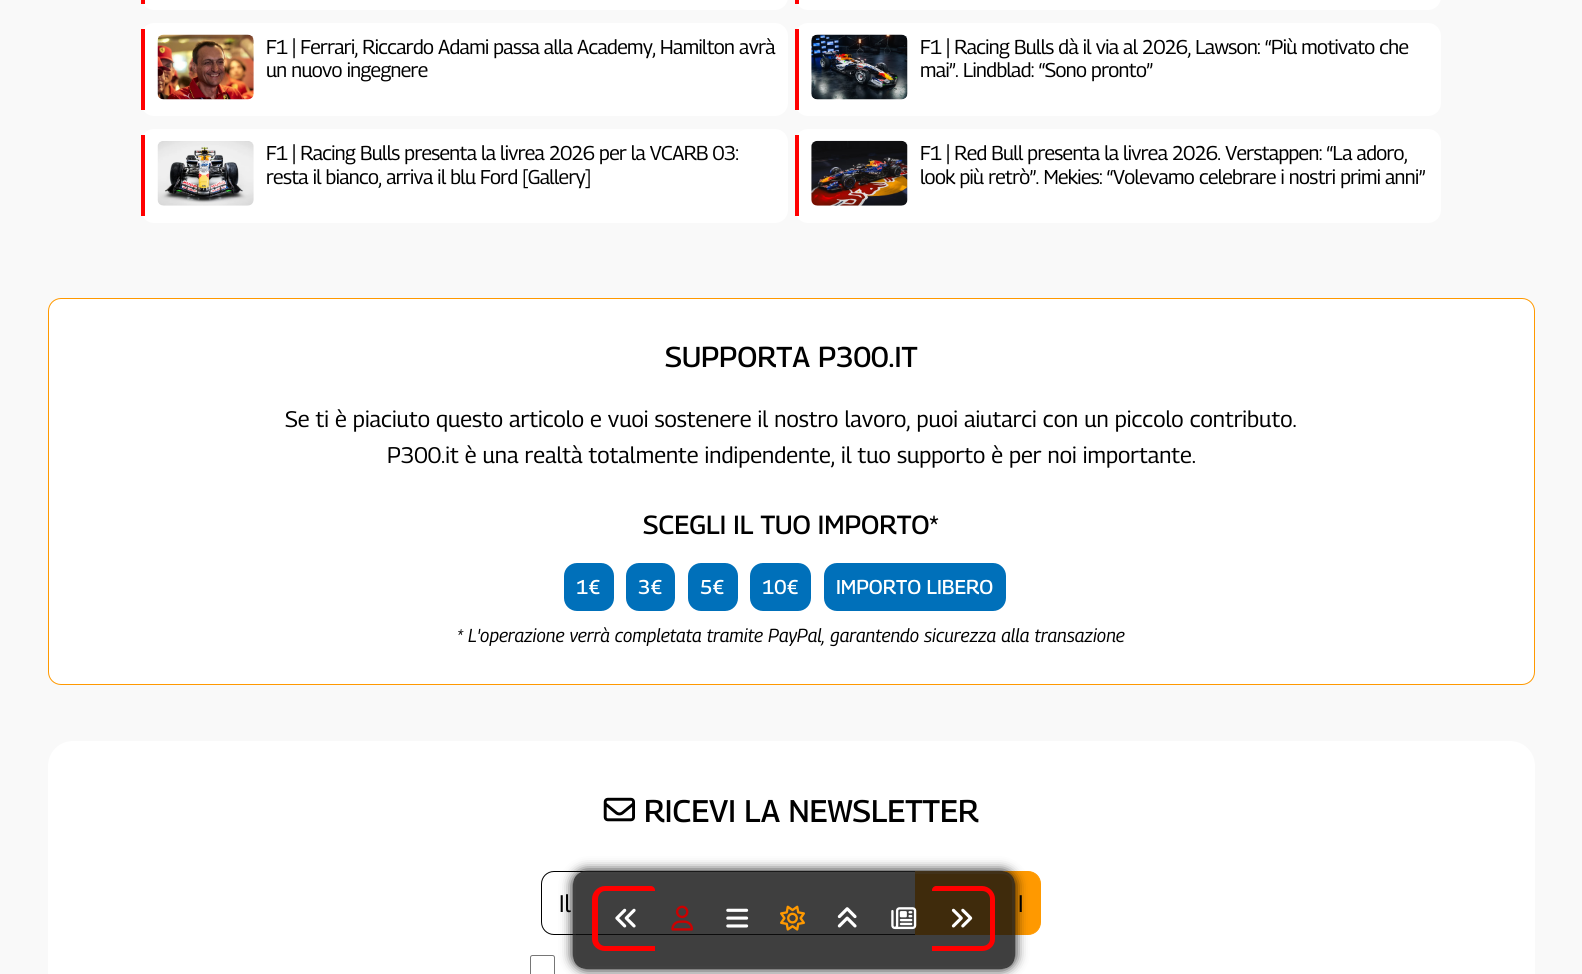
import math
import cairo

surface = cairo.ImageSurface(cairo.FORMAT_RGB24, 1582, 974)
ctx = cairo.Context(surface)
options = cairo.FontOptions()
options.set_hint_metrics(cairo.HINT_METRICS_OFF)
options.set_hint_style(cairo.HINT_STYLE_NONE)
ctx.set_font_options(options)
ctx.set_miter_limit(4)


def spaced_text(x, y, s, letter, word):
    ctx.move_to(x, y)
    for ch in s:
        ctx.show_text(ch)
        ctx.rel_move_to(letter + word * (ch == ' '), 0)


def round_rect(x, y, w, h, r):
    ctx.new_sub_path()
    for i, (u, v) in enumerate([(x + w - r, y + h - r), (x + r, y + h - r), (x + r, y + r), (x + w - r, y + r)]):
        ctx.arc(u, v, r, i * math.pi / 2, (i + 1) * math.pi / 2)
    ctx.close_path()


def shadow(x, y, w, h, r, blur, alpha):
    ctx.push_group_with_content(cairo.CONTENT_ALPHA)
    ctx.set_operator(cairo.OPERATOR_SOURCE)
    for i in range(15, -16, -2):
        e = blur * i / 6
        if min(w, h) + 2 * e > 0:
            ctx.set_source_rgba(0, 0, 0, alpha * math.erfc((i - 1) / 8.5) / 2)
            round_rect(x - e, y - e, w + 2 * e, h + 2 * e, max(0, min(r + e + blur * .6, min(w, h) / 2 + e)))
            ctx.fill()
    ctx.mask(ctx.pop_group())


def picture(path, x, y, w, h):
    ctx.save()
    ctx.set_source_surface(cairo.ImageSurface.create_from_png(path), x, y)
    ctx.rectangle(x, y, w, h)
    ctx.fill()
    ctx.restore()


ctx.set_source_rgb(0.973, 0.973, 0.973)
ctx.paint()
ctx.set_source_rgb(1, 1, 1)
round_rect(141, -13, 647, 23, 13)
ctx.fill()
ctx.set_source_rgb(1, 0, 0)
ctx.rectangle(141, 0, 4, 4)
ctx.fill()
ctx.set_source_rgb(1, 1, 1)
round_rect(795, -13, 646, 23, 13)
ctx.fill()
ctx.set_source_rgb(1, 0, 0)
ctx.rectangle(795, 0, 4, 4)
ctx.fill()
ctx.set_source_rgb(1, 1, 1)
round_rect(141, 23, 647, 93, 13)
ctx.fill()
ctx.set_source_rgb(1, 0, 0)
ctx.rectangle(141, 29, 4, 81)
ctx.fill()
picture("img1.png", 157, 34, 97, 66)
ctx.select_font_face("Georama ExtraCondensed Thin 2 Thin")
ctx.set_font_size(20)
ctx.set_source_rgb(0, 0, 0)
spaced_text(266, 54, "F1 | Ferrari, Riccardo Adami passa alla Academy, Hamilton avrà", -0.62, 0)
spaced_text(266, 77, "un nuovo ingegnere", -0.62, 0)
ctx.set_source_rgb(1, 1, 1)
round_rect(795, 23, 646, 93, 13)
ctx.fill()
ctx.set_source_rgb(1, 0, 0)
ctx.rectangle(795, 29, 4, 81)
ctx.fill()
picture("img2.png", 811, 34, 97, 66)
ctx.set_source_rgb(0, 0, 0)
spaced_text(920, 54, "F1 | Racing Bulls dà il via al 2026, Lawson: “Più motivato che", -0.62, 0)
spaced_text(920, 77, "mai”. Lindblad: “Sono pronto”", -0.62, 0)
ctx.set_source_rgb(1, 1, 1)
round_rect(141, 129, 647, 94, 13)
ctx.fill()
ctx.set_source_rgb(1, 0, 0)
ctx.rectangle(141, 135, 4, 81)
ctx.fill()
picture("img3.png", 157, 141, 97, 65)
ctx.set_source_rgb(0, 0, 0)
spaced_text(266, 160, "F1 | Racing Bulls presenta la livrea 2026 per la VCARB 03:", -0.62, 0)
spaced_text(266, 184, "resta il bianco, arriva il blu Ford [Gallery]", -0.62, 0)
ctx.set_source_rgb(1, 1, 1)
round_rect(795, 129, 646, 94, 13)
ctx.fill()
ctx.set_source_rgb(1, 0, 0)
ctx.rectangle(795, 135, 4, 81)
ctx.fill()
picture("img4.png", 811, 140, 97, 66)
ctx.set_source_rgb(0, 0, 0)
spaced_text(920, 160, "F1 | Red Bull presenta la livrea 2026. Verstappen: “La adoro,", -0.62, 0)
spaced_text(920, 184, "look più retrò”. Mekies: “Volevamo celebrare i nostri primi anni”", -0.62, 0)
ctx.set_source_rgb(1, 1, 1)
round_rect(48.5, 298.5, 1486, 386, 12.5)
ctx.fill_preserve()
ctx.set_source_rgb(1, 0.6, 0)
ctx.set_line_width(1)
ctx.stroke()
ctx.select_font_face("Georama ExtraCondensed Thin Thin")
ctx.set_font_size(28.75)
ctx.set_source_rgb(0, 0, 0)
ctx.move_to(665, 367)
ctx.show_text("SUPPORTA P300.IT")
ctx.select_font_face("Georama ExtraCondensed Thin 2 Thin")
ctx.set_font_size(22.5)
ctx.move_to(285, 427)
ctx.show_text("Se ti è piaciuto questo articolo e vuoi sostenere il nostro lavoro, puoi aiutarci con un piccolo contributo.")
ctx.move_to(387, 463)
ctx.show_text("P300.it è una realtà totalmente indipendente, il tuo supporto è per noi importante.")
ctx.select_font_face("Georama ExtraCondensed Thin Thin")
ctx.set_font_size(26.25)
ctx.move_to(643, 534)
ctx.show_text("SCEGLI IL TUO IMPORTO*")
ctx.set_source_rgb(0, 0.439, 0.729)
round_rect(564, 563, 50, 48, 13)
ctx.fill()
ctx.set_font_size(20)
ctx.set_source_rgb(1, 1, 1)
ctx.move_to(576, 594)
ctx.show_text("1€")
ctx.set_source_rgb(0, 0.439, 0.729)
round_rect(626, 563, 49, 48, 13)
ctx.fill()
ctx.set_source_rgb(1, 1, 1)
ctx.move_to(638, 594)
ctx.show_text("3€")
ctx.set_source_rgb(0, 0.439, 0.729)
round_rect(688, 563, 50, 48, 13)
ctx.fill()
ctx.set_source_rgb(1, 1, 1)
ctx.move_to(700, 594)
ctx.show_text("5€")
ctx.set_source_rgb(0, 0.439, 0.729)
round_rect(750, 563, 61, 48, 13)
ctx.fill()
ctx.set_source_rgb(1, 1, 1)
ctx.move_to(762, 594)
ctx.show_text("10€")
ctx.set_source_rgb(0, 0.439, 0.729)
round_rect(824, 563, 182, 48, 13)
ctx.fill()
ctx.set_source_rgb(1, 1, 1)
ctx.move_to(836, 594)
ctx.show_text("IMPORTO LIBERO")
ctx.select_font_face("Georama ExtraCondensed Thin Thin", cairo.FONT_SLANT_ITALIC)
ctx.set_font_size(18.75)
ctx.set_source_rgb(0, 0, 0)
ctx.move_to(457, 642)
ctx.show_text("* L'operazione verrà completata tramite PayPal, garantendo sicurezza alla transazione")
ctx.set_source_rgb(1, 1, 1)
round_rect(48, 741, 1487, 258, 25)
ctx.fill()
picture("img5.png", 603, 797, 32, 25)
ctx.select_font_face("Georama ExtraCondensed Thin Thin")
ctx.set_font_size(31.25)
ctx.set_source_rgb(0, 0, 0)
ctx.move_to(644, 822)
ctx.show_text("RICEVI LA NEWSLETTER")
ctx.new_path()
ctx.move_to(554, 871.5)
ctx.line_to(915.5, 871.5)
ctx.line_to(915.5, 934.5)
ctx.line_to(554, 934.5)
ctx.curve_to(547, 934.5, 541.5, 929, 541.5, 922)
ctx.line_to(541.5, 884)
ctx.curve_to(541.5, 877, 547, 871.5, 554, 871.5)
ctx.close_path()
ctx.stroke()
ctx.select_font_face("Georama ExtraCondensed Thin 2 Thin")
ctx.set_font_size(24)
ctx.move_to(559, 912)
ctx.show_text("Il")
ctx.set_source_rgb(1, 0.6, 0)
ctx.new_path()
ctx.move_to(915.5, 871.5)
ctx.line_to(1028, 871.5)
ctx.curve_to(1035, 871.5, 1040.5, 877, 1040.5, 884)
ctx.line_to(1040.5, 922)
ctx.curve_to(1040.5, 929, 1035, 934.5, 1028, 934.5)
ctx.line_to(915.5, 934.5)
ctx.close_path()
ctx.fill_preserve()
ctx.stroke()
ctx.set_source_rgb(0, 0, 0)
ctx.move_to(1018, 912)
ctx.show_text("I")
round_rect(530.5, 955.5, 24, 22, 2)
ctx.set_source_rgb(0.463, 0.463, 0.463)
ctx.stroke()
ctx.save()
ctx.set_fill_rule(cairo.FILL_RULE_EVEN_ODD)
ctx.new_path()
ctx.move_to(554, 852)
ctx.line_to(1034, 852)
ctx.line_to(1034, 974)
ctx.line_to(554, 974)
ctx.close_path()
ctx.move_to(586, 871)
ctx.line_to(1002, 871)
ctx.curve_to(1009, 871, 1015, 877, 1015, 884)
ctx.line_to(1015, 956)
ctx.curve_to(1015, 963, 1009, 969, 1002, 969)
ctx.line_to(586, 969)
ctx.curve_to(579, 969, 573, 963, 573, 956)
ctx.line_to(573, 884)
ctx.curve_to(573, 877, 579, 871, 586, 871)
ctx.close_path()
ctx.clip()
ctx.set_source_rgb(0, 0, 0)
shadow(573, 871, 442, 98, 13, 6, 1)
ctx.restore()
ctx.set_source_rgba(0.059, 0.059, 0.059, 0.8)
round_rect(573, 871, 442, 98, 13)
ctx.fill()
round_rect(574.5, 872.5, 439, 95, 11.5)
ctx.set_source_rgba(0.294, 0.294, 0.294, 0.2)
ctx.set_line_width(3)
ctx.stroke()
ctx.set_source_rgb(1, 0, 0)
ctx.set_fill_rule(cairo.FILL_RULE_EVEN_ODD)
ctx.new_path()
ctx.move_to(605, 886)
ctx.line_to(651, 886)
ctx.curve_to(653, 886, 655, 888, 655, 890)
ctx.line_to(655, 951)
ctx.line_to(605, 951)
ctx.curve_to(598, 951, 592, 946, 592, 939)
ctx.line_to(592, 899)
ctx.curve_to(592, 892, 598, 886, 605, 886)
ctx.close_path()
ctx.move_to(605, 891)
ctx.line_to(655, 891)
ctx.line_to(655, 946)
ctx.line_to(605, 946)
ctx.curve_to(601, 946, 598, 943, 598, 939)
ctx.line_to(598, 899)
ctx.curve_to(598, 895, 601, 891, 605, 891)
ctx.close_path()
ctx.fill()
picture("img6.png", 615, 908, 21, 20)
picture("img7.png", 671, 905, 23, 26)
picture("img8.png", 726, 908, 23, 20)
picture("img9.png", 780, 905, 25, 26)
picture("img10.png", 837, 907, 20, 21)
picture("img11.png", 891, 907, 26, 23)
ctx.new_path()
ctx.move_to(936, 886)
ctx.line_to(982, 886)
ctx.curve_to(989, 886, 995, 892, 995, 899)
ctx.line_to(995, 939)
ctx.curve_to(995, 946, 989, 951, 982, 951)
ctx.line_to(932, 951)
ctx.line_to(932, 890)
ctx.curve_to(932, 888, 934, 886, 936, 886)
ctx.close_path()
ctx.move_to(936, 891)
ctx.line_to(982, 891)
ctx.curve_to(987, 891, 990, 895, 990, 899)
ctx.line_to(990, 939)
ctx.curve_to(990, 943, 987, 946, 982, 946)
ctx.line_to(932, 946)
ctx.line_to(932, 891)
ctx.close_path()
ctx.fill()
picture("img12.png", 951, 908, 22, 20)
surface.write_to_png("page.png")
